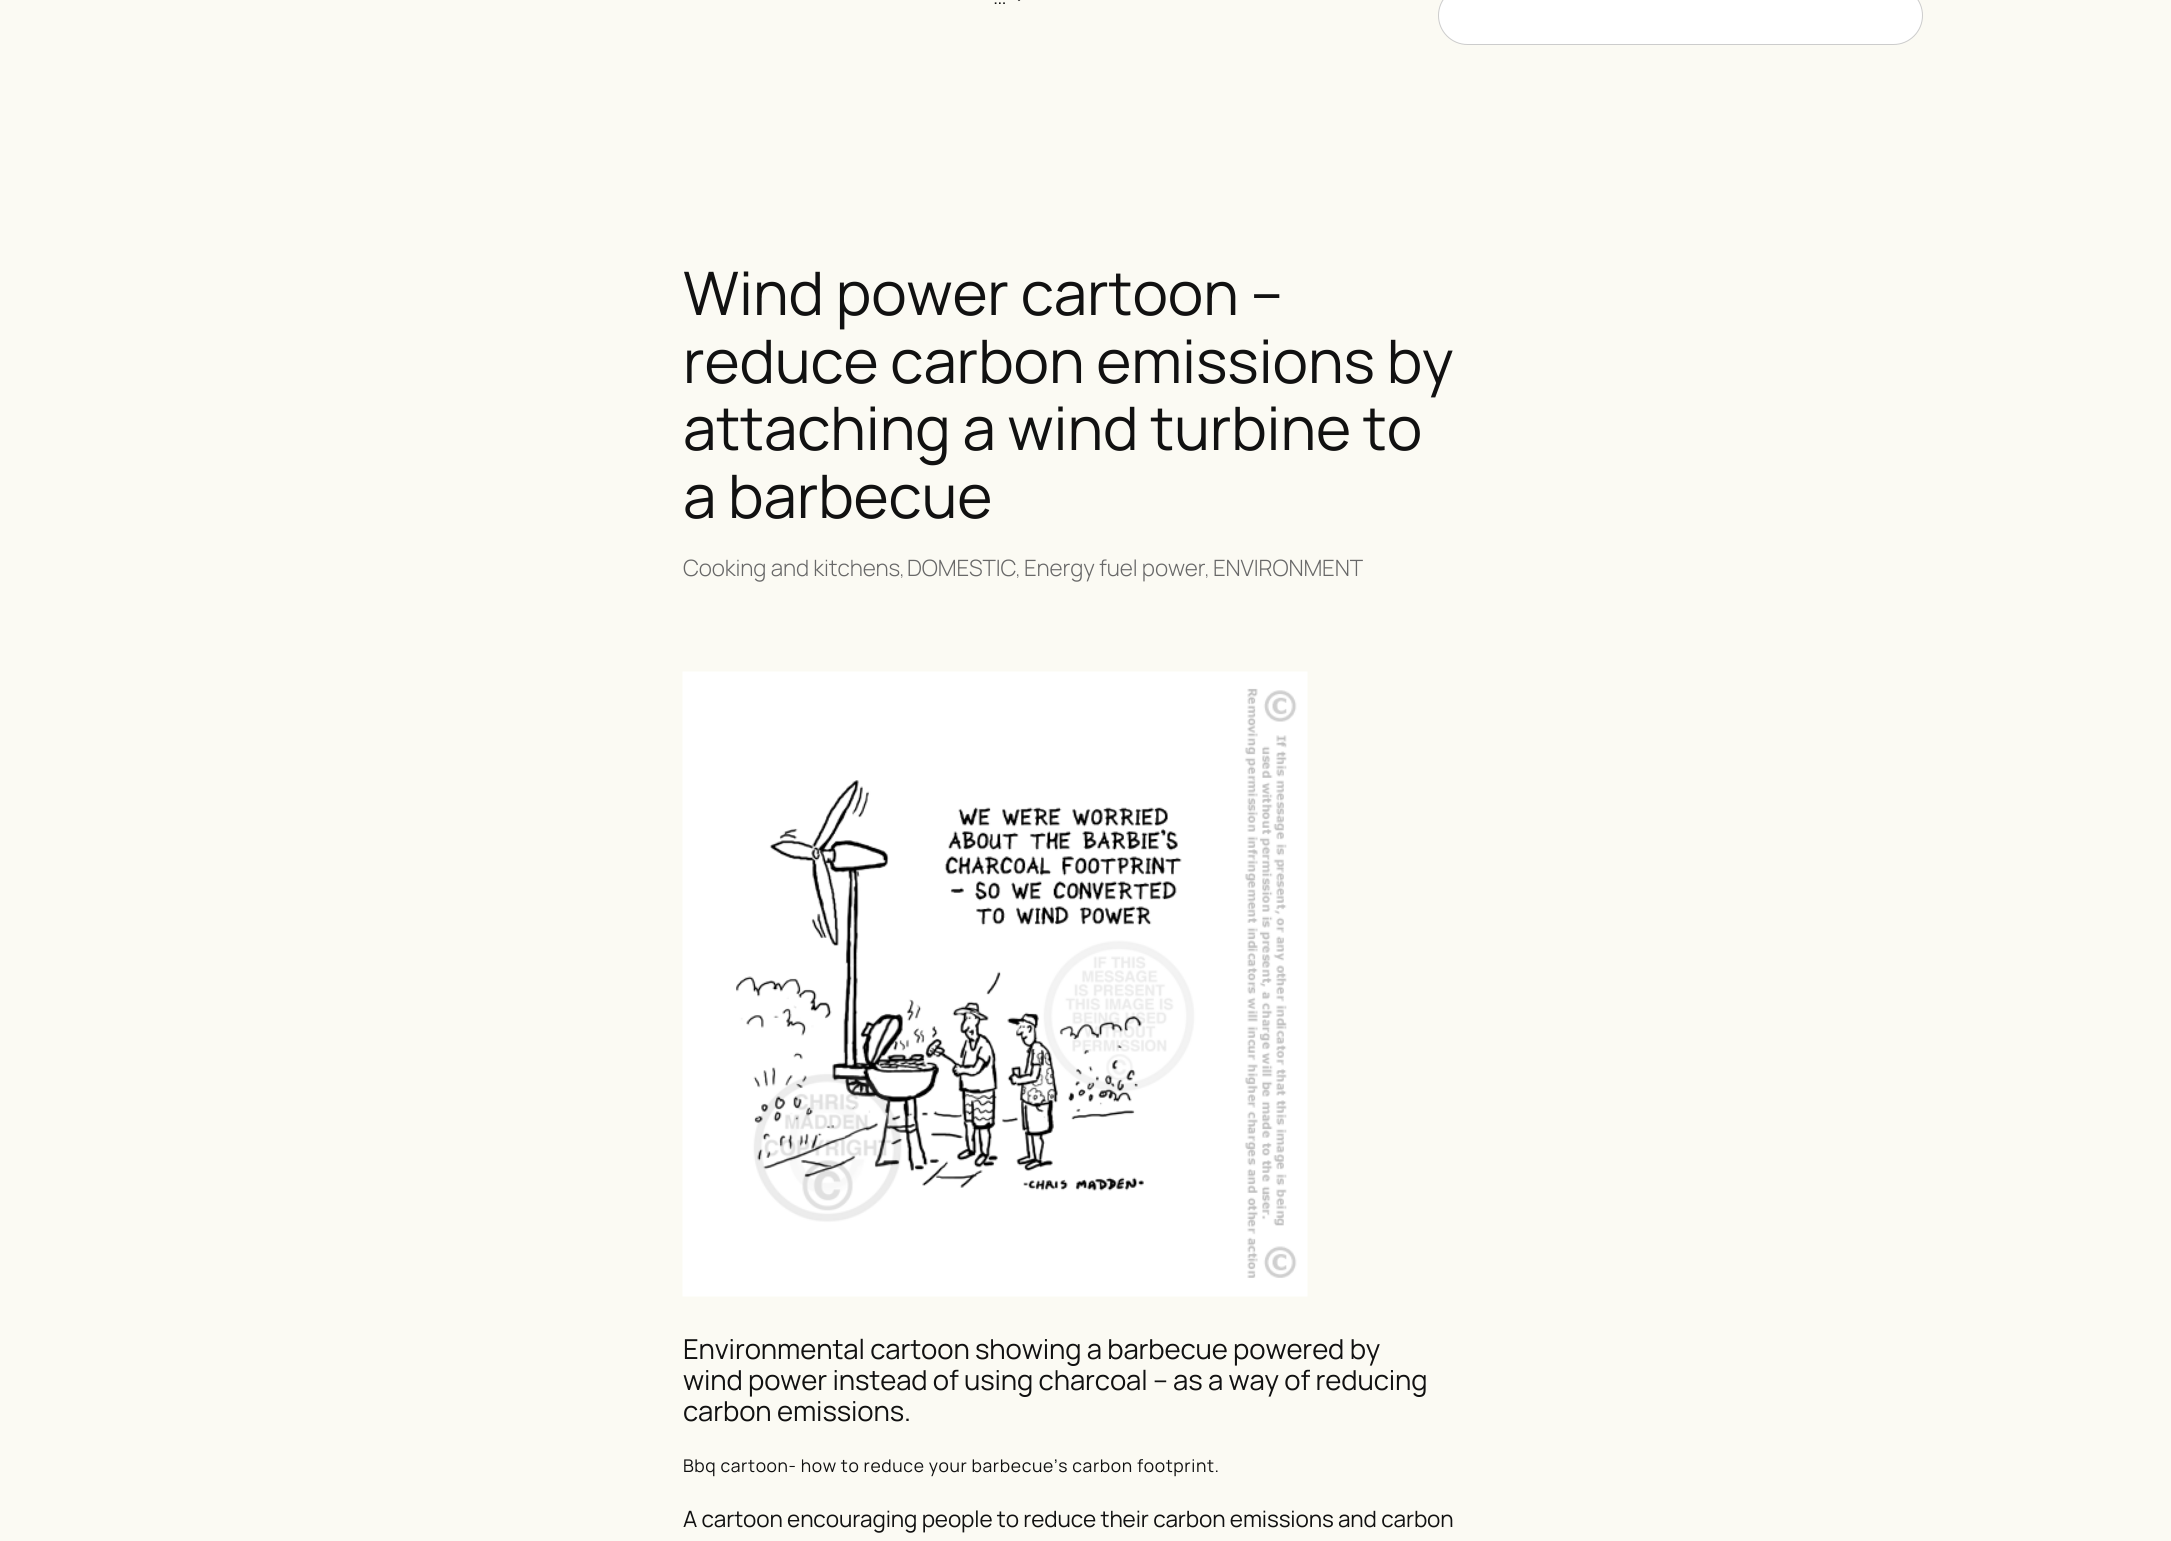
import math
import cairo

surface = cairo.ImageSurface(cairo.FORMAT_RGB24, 2171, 1541)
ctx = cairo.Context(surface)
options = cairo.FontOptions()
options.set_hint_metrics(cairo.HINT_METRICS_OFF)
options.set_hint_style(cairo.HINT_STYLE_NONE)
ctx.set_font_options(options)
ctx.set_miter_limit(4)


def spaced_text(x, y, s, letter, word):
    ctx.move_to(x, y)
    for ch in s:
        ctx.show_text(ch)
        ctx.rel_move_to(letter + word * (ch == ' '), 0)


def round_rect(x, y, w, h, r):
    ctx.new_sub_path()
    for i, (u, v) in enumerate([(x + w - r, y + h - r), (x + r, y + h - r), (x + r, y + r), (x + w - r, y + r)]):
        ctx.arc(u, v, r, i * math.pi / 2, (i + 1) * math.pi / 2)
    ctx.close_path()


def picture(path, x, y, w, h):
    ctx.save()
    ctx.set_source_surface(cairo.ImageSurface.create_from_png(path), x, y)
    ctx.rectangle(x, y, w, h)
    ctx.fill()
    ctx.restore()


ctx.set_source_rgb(0.984, 0.98, 0.953)
ctx.paint()
ctx.new_path()
ctx.move_to(1014, -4.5)
ctx.line_to(1019, 0)
ctx.line_to(1024.5, -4.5)
ctx.set_source_rgb(0.067, 0.067, 0.067)
ctx.set_line_width(1.7)
ctx.stroke()
ctx.select_font_face("Manrope Light")
ctx.set_font_size(22.5)
spaced_text(993, 4, "…", -0.12, 0)
ctx.set_source_rgb(1, 1, 1)
round_rect(1438, -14, 485, 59, 29.5)
ctx.fill()
round_rect(1438.5, -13.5, 484, 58, 29)
ctx.set_source_rgba(0, 0, 0, 0.2)
ctx.set_line_width(1)
ctx.stroke()
ctx.select_font_face("Manrope")
ctx.set_font_size(60)
ctx.set_source_rgb(0.067, 0.067, 0.067)
spaced_text(683, 315, "Wind power cartoon –", -0.12, 0)
spaced_text(683, 383, "reduce carbon emissions by", -0.12, 0)
spaced_text(683, 450, "attaching a wind turbine to", -0.12, 0)
spaced_text(683, 518, "a barbecue", -0.12, 0)
ctx.select_font_face("Manrope Light")
ctx.set_font_size(22.5)
ctx.set_source_rgb(0.408, 0.408, 0.408)
spaced_text(683, 576, "Cooking and kitchens", -0.12, 0)
ctx.set_font_size(17.5)
spaced_text(900, 576, ",", -0.12, 0)
ctx.set_font_size(22.5)
spaced_text(907, 576, "DOMESTIC", -0.12, 0)
ctx.set_font_size(17.5)
spaced_text(1016, 576, ",", -0.12, 0)
ctx.set_font_size(22.5)
spaced_text(1024, 576, "Energy fuel power", -0.12, 0)
ctx.set_font_size(17.5)
spaced_text(1205, 576, ",", -0.12, 0)
ctx.set_font_size(22.5)
spaced_text(1213, 576, "ENVIRONMENT", -0.12, 0)
picture("img1.png", 682, 671, 626, 626)
ctx.select_font_face("Manrope")
ctx.set_font_size(27.5)
ctx.set_source_rgb(0.067, 0.067, 0.067)
spaced_text(683, 1359, "Environmental cartoon showing a barbecue powered by", -0.12, 0)
spaced_text(683, 1390, "wind power instead of using charcoal – as a way of reducing", -0.12, 0)
spaced_text(683, 1421, "carbon emissions.", -0.12, 0)
ctx.set_font_size(17.5)
spaced_text(683, 1472, "Bbq cartoon- how to reduce your barbecue’s carbon footprint.", 0.62, 0)
ctx.set_font_size(22.5)
spaced_text(683, 1527, "A cartoon encouraging people to reduce their carbon emissions and carbon", -0.12, 0)
surface.write_to_png("page.png")
